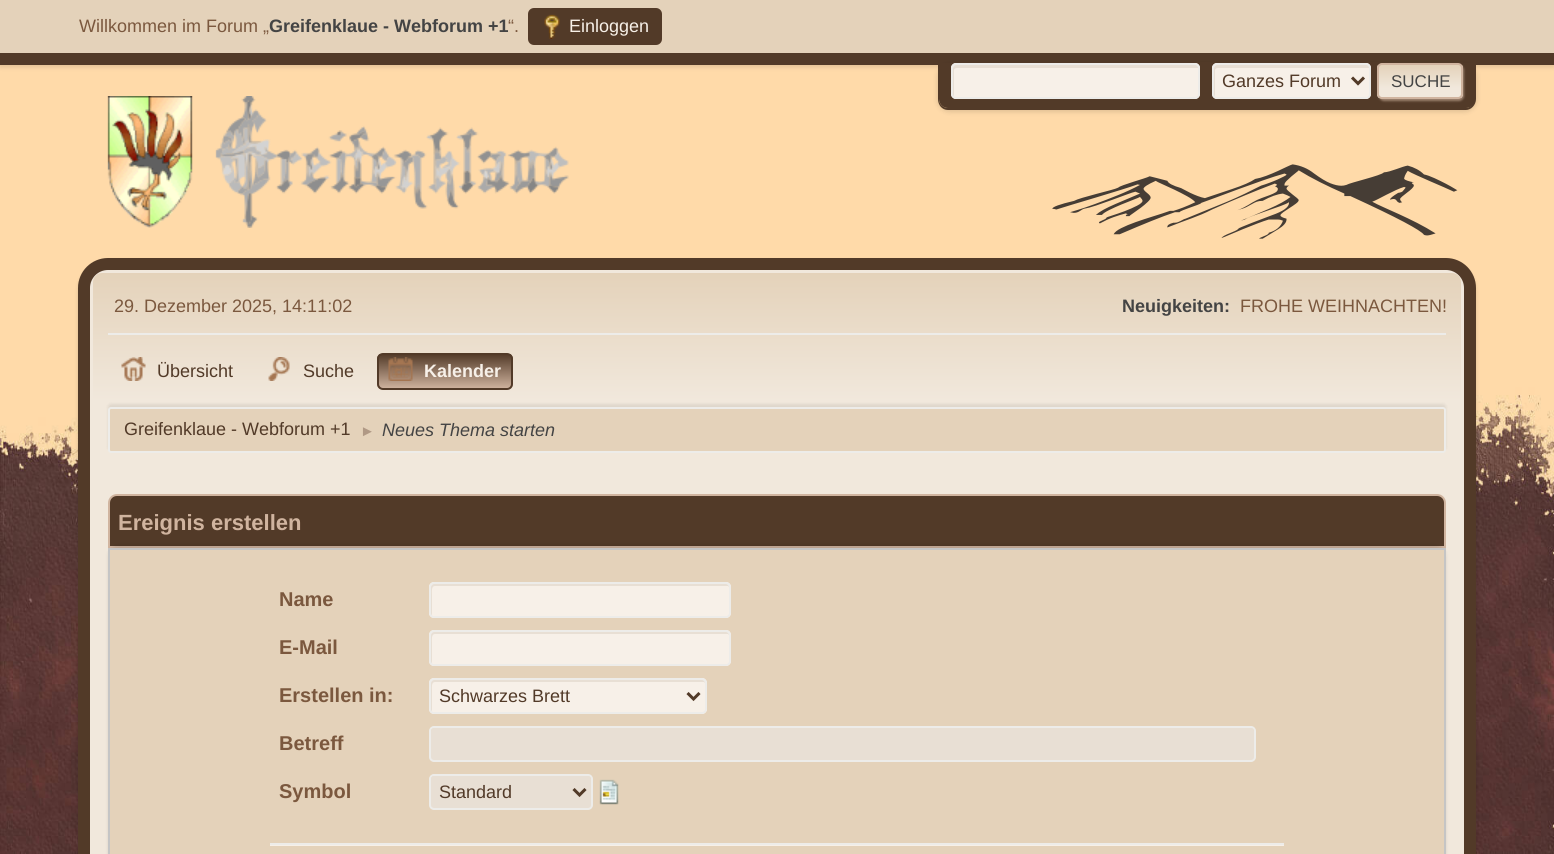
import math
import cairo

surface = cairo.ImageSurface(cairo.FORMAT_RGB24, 1554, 854)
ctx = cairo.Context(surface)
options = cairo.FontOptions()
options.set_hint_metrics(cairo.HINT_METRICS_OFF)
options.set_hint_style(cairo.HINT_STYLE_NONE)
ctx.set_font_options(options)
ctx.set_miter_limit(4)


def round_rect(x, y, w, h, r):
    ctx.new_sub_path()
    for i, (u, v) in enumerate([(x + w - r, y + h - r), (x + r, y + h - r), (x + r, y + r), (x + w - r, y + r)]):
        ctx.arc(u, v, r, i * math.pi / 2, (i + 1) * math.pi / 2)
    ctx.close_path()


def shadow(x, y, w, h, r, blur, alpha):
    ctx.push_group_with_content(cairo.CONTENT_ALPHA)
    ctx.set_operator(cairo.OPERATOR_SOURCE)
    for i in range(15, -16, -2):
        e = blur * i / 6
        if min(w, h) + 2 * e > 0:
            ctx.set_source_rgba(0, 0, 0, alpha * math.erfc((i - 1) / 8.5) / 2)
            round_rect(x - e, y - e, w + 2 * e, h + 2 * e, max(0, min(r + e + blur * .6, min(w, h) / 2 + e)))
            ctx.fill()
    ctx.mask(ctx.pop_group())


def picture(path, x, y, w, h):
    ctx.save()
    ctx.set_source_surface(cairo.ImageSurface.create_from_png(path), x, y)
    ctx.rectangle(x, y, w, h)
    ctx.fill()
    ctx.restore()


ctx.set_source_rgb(1, 1, 1)
ctx.paint()
picture("img1.png", 0, 65, 1554, 789)
ctx.set_source_rgb(0, 0, 0)
shadow(0, 2, 1554, 64, 0, 3, 0.16)
ctx.set_source_rgb(0.894, 0.824, 0.729)
ctx.rectangle(0, 0, 1554, 53)
ctx.fill()
ctx.set_source_rgb(0.322, 0.227, 0.157)
ctx.rectangle(0, 53, 1554, 12)
ctx.fill()
ctx.select_font_face("Liberation Sans")
ctx.set_font_size(18)
ctx.set_source_rgb(0.482, 0.345, 0.243)
ctx.move_to(79, 32)
ctx.show_text("Willkommen im Forum „")
ctx.select_font_face("Liberation Sans", cairo.FONT_SLANT_NORMAL, cairo.FONT_WEIGHT_BOLD)
ctx.set_source_rgb(0.267, 0.267, 0.267)
ctx.move_to(269, 32)
ctx.show_text("Greifenklaue - Webforum +1")
ctx.select_font_face("Liberation Sans")
ctx.set_source_rgb(0.482, 0.345, 0.243)
ctx.move_to(508, 32)
ctx.show_text("“.")
ctx.set_source_rgb(0.322, 0.227, 0.157)
round_rect(529, 9, 132, 35, 5)
ctx.fill_preserve()
ctx.stroke()
picture("img2.png", 544, 14, 16, 25)
ctx.set_source_rgb(0.965, 0.941, 0.91)
ctx.move_to(569, 32)
ctx.show_text("Einloggen")
ctx.set_source_rgb(0, 0, 0)
shadow(938, 65, 538, 46, 11, 3, 0.16)
ctx.set_source_rgb(0.322, 0.227, 0.157)
ctx.rectangle(951, 62, 512, 1)
ctx.fill()
ctx.new_path()
ctx.move_to(939, 63)
ctx.line_to(1475, 63)
ctx.line_to(1475, 99)
ctx.curve_to(1475, 104, 1471, 108, 1466, 108)
ctx.line_to(948, 108)
ctx.curve_to(943, 108, 939, 104, 939, 99)
ctx.close_path()
ctx.fill()
ctx.set_fill_rule(cairo.FILL_RULE_EVEN_ODD)
ctx.new_path()
ctx.move_to(938, 63)
ctx.line_to(1476, 63)
ctx.line_to(1476, 99)
ctx.curve_to(1476, 105, 1471, 110, 1466, 110)
ctx.line_to(948, 110)
ctx.curve_to(942, 110, 938, 105, 938, 99)
ctx.close_path()
ctx.move_to(939, 63)
ctx.line_to(1474, 63)
ctx.line_to(1474, 99)
ctx.curve_to(1474, 104, 1470, 108, 1466, 108)
ctx.line_to(948, 108)
ctx.curve_to(943, 108, 939, 104, 939, 99)
ctx.close_path()
ctx.fill()
ctx.set_source_rgb(0.965, 0.941, 0.91)
round_rect(951, 63, 249, 36, 5)
ctx.fill()
ctx.set_source_rgb(0.91, 0.875, 0.831)
ctx.set_fill_rule(cairo.FILL_RULE_WINDING)
ctx.new_path()
ctx.move_to(957, 68)
ctx.line_to(1197, 68)
ctx.line_to(1199, 68)
ctx.curve_to(1199, 66, 1198, 65, 1196, 65)
ctx.line_to(956, 65)
ctx.curve_to(954, 65, 953, 66, 953, 68)
ctx.line_to(953, 95)
ctx.curve_to(953, 96, 953, 97, 954, 97)
ctx.line_to(954, 70)
ctx.curve_to(954, 69, 955, 68, 957, 68)
ctx.close_path()
ctx.fill()
round_rect(952, 64, 247, 34, 4)
ctx.set_source_rgb(0.929, 0.922, 0.914)
ctx.stroke()
ctx.set_source_rgb(0.965, 0.941, 0.91)
round_rect(1212, 63, 159, 36, 5)
ctx.fill()
ctx.set_source_rgb(0.91, 0.875, 0.831)
ctx.new_path()
ctx.move_to(1218, 68)
ctx.line_to(1368, 68)
ctx.line_to(1370, 68)
ctx.curve_to(1370, 66, 1369, 65, 1367, 65)
ctx.line_to(1217, 65)
ctx.curve_to(1215, 65, 1214, 66, 1214, 68)
ctx.line_to(1214, 95)
ctx.curve_to(1214, 96, 1214, 97, 1215, 97)
ctx.line_to(1215, 70)
ctx.curve_to(1215, 69, 1216, 68, 1218, 68)
ctx.close_path()
ctx.fill()
round_rect(1213, 64, 157, 34, 4)
ctx.set_source_rgb(0.929, 0.922, 0.914)
ctx.stroke()
ctx.new_path()
ctx.move_to(1352, 77.5)
ctx.line_to(1358, 83.5)
ctx.line_to(1364, 77.5)
ctx.set_source_rgb(0.322, 0.227, 0.157)
ctx.set_line_width(3)
ctx.stroke()
ctx.move_to(1222, 87)
ctx.show_text("Ganzes Forum")
ctx.set_source_rgb(0.816, 0.706, 0.624)
shadow(1379, 65, 85, 36, 5, 1, 0.57)
ctx.save()
round_rect(1377, 63, 86, 36, 5)
ctx.clip()
gradient = cairo.LinearGradient(1420, 65, 1420, 98)
gradient.add_color_stop_rgba(0, 0.894, 0.824, 0.729, 1)
gradient.add_color_stop_rgba(0.7, 0.945, 0.91, 0.863, 1)
ctx.set_source(gradient)
ctx.rectangle(1377, 65, 86, 33)
ctx.fill()
ctx.restore()
round_rect(1378, 64, 84, 34, 4)
ctx.set_source_rgb(0.816, 0.706, 0.624)
ctx.set_line_width(2)
ctx.stroke()
ctx.set_font_size(17)
ctx.set_source_rgb(0.267, 0.267, 0.267)
ctx.move_to(1391, 87)
ctx.show_text("SUCHE")
picture("img3.png", 107, 96, 462, 132)
picture("img4.png", 1052, 164, 406, 75)
ctx.set_source_rgb(0, 0, 0)
shadow(78, 261, 1398, 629, 30, 2, 0.14)
ctx.set_source_rgb(0.945, 0.91, 0.863)
round_rect(84, 264, 1386, 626, 24)
ctx.fill_preserve()
ctx.set_source_rgb(0.322, 0.227, 0.157)
ctx.set_line_width(12)
ctx.stroke()
gradient = cairo.LinearGradient(777, 273, 777, 456)
gradient.add_color_stop_rgba(0, 0.894, 0.824, 0.729, 1)
gradient.add_color_stop_rgba(0.7, 0.945, 0.91, 0.863, 1)
ctx.set_source(gradient)
ctx.new_path()
ctx.move_to(102, 273)
ctx.line_to(1452, 273)
ctx.curve_to(1457, 273, 1461, 277, 1461, 282)
ctx.line_to(1461, 456)
ctx.line_to(93, 456)
ctx.line_to(93, 282)
ctx.curve_to(93, 277, 97, 273, 102, 273)
ctx.close_path()
ctx.fill()
ctx.set_source_rgb(0.929, 0.922, 0.914)
ctx.rectangle(108, 333, 1338, 2)
ctx.fill()
ctx.set_font_size(18)
ctx.set_source_rgb(0.482, 0.345, 0.243)
ctx.move_to(114, 312)
ctx.show_text("29. Dezember 2025, 14:11:02")
ctx.select_font_face("Liberation Sans", cairo.FONT_SLANT_NORMAL, cairo.FONT_WEIGHT_BOLD)
ctx.set_source_rgb(0.267, 0.267, 0.267)
ctx.move_to(1122, 312)
ctx.show_text("Neuigkeiten:")
ctx.select_font_face("Liberation Sans")
ctx.set_source_rgb(0.482, 0.345, 0.243)
ctx.move_to(1240, 312)
ctx.show_text("FROHE WEIHNACHTEN!")
picture("img5.png", 121, 357, 25, 24)
ctx.set_source_rgb(0.322, 0.227, 0.157)
ctx.move_to(157, 377)
ctx.show_text("Übersicht")
picture("img6.png", 268, 357, 22, 24)
ctx.move_to(303, 377)
ctx.show_text("Suche")
ctx.save()
round_rect(377, 353, 136, 37, 6)
ctx.clip()
gradient = cairo.LinearGradient(445, 354, 445, 389)
gradient.add_color_stop_rgba(0, 0.322, 0.227, 0.157, 1)
gradient.add_color_stop_rgba(1, 0.816, 0.706, 0.624, 1)
ctx.set_source(gradient)
ctx.rectangle(377, 354, 136, 35)
ctx.fill()
ctx.restore()
round_rect(378, 354, 134, 35, 5)
ctx.set_line_width(2)
ctx.stroke()
picture("img7.png", 388, 357, 25, 24)
ctx.select_font_face("Liberation Sans", cairo.FONT_SLANT_NORMAL, cairo.FONT_WEIGHT_BOLD)
ctx.set_source_rgb(0.965, 0.941, 0.91)
ctx.move_to(424, 377)
ctx.show_text("Kalender")
ctx.set_source_rgb(0, 0, 0)
shadow(108, 404, 1338, 46, 3, 1.5, 0.08)
ctx.set_source_rgb(0.894, 0.824, 0.729)
round_rect(109, 408, 1336, 44, 2)
ctx.fill_preserve()
ctx.set_source_rgb(0.929, 0.922, 0.914)
ctx.stroke()
ctx.select_font_face("Liberation Sans")
ctx.set_source_rgb(0.322, 0.227, 0.157)
ctx.move_to(124, 435)
ctx.show_text("Greifenklaue - Webforum +1")
ctx.set_font_size(15)
ctx.set_source_rgb(0.69, 0.6, 0.522)
ctx.move_to(360, 436)
ctx.show_text("►")
ctx.select_font_face("Liberation Sans", cairo.FONT_SLANT_ITALIC)
ctx.set_font_size(18)
ctx.set_source_rgb(0.267, 0.267, 0.267)
ctx.move_to(382, 436)
ctx.show_text("Neues Thema starten")
ctx.set_source_rgb(0.322, 0.227, 0.157)
ctx.new_path()
ctx.move_to(117, 495)
ctx.line_to(1437, 495)
ctx.curve_to(1441.5, 495, 1445, 498.5, 1445, 503)
ctx.line_to(1445, 547)
ctx.line_to(109, 547)
ctx.line_to(109, 503)
ctx.curve_to(109, 498.5, 112.5, 495, 117, 495)
ctx.close_path()
ctx.fill_preserve()
ctx.set_source_rgb(0.816, 0.706, 0.624)
ctx.stroke()
ctx.select_font_face("Liberation Sans", cairo.FONT_SLANT_NORMAL, cairo.FONT_WEIGHT_BOLD)
ctx.set_font_size(22)
ctx.move_to(118, 530)
ctx.show_text("Ereignis erstellen")
ctx.set_source_rgb(0, 0, 0)
shadow(108, 545, 1338, 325, 11, 1.5, 0.1)
ctx.set_source_rgb(0.894, 0.824, 0.729)
ctx.rectangle(109, 549, 1336, 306)
ctx.fill_preserve()
ctx.set_source_rgb(0.773, 0.773, 0.773)
ctx.stroke()
ctx.set_font_size(20)
ctx.set_source_rgb(0.482, 0.345, 0.243)
ctx.move_to(279, 606)
ctx.show_text("Name")
ctx.set_source_rgb(0.965, 0.941, 0.91)
round_rect(429, 582, 302, 36, 5)
ctx.fill()
ctx.set_source_rgb(0.91, 0.875, 0.831)
ctx.new_path()
ctx.move_to(435, 586)
ctx.line_to(728, 586)
ctx.line_to(729, 587)
ctx.curve_to(729, 585, 728, 584, 726, 584)
ctx.line_to(434, 584)
ctx.curve_to(432, 584, 431, 585, 431, 587)
ctx.line_to(431, 614)
ctx.curve_to(431, 615, 431, 616, 432, 616)
ctx.line_to(432, 594)
ctx.curve_to(432, 592, 431, 586, 435, 586)
ctx.close_path()
ctx.fill()
round_rect(430, 583, 300, 34, 4)
ctx.set_source_rgb(0.929, 0.922, 0.914)
ctx.stroke()
ctx.set_source_rgb(0.482, 0.345, 0.243)
ctx.move_to(279, 654)
ctx.show_text("E-Mail")
ctx.set_source_rgb(0.965, 0.941, 0.91)
round_rect(429, 630, 302, 36, 5)
ctx.fill()
ctx.set_source_rgb(0.91, 0.875, 0.831)
ctx.new_path()
ctx.move_to(435, 634)
ctx.line_to(728, 634)
ctx.line_to(729, 635)
ctx.curve_to(729, 633, 728, 632, 726, 632)
ctx.line_to(434, 632)
ctx.curve_to(432, 632, 431, 633, 431, 635)
ctx.line_to(431, 662)
ctx.curve_to(431, 663, 431, 664, 432, 664)
ctx.line_to(432, 642)
ctx.curve_to(432, 640, 431, 634, 435, 634)
ctx.close_path()
ctx.fill()
round_rect(430, 631, 300, 34, 4)
ctx.set_source_rgb(0.929, 0.922, 0.914)
ctx.stroke()
ctx.set_source_rgb(0.482, 0.345, 0.243)
ctx.move_to(279, 702)
ctx.show_text("Erstellen in:")
ctx.set_source_rgb(0.965, 0.941, 0.91)
round_rect(429, 678, 278, 36, 5)
ctx.fill()
ctx.set_source_rgb(0.91, 0.875, 0.831)
ctx.new_path()
ctx.move_to(435, 682)
ctx.line_to(704, 682)
ctx.line_to(705, 683)
ctx.curve_to(705, 681, 704, 680, 702, 680)
ctx.line_to(434, 680)
ctx.curve_to(432, 680, 431, 681, 431, 683)
ctx.line_to(431, 710)
ctx.curve_to(431, 711, 431, 712, 432, 712)
ctx.line_to(432, 690)
ctx.curve_to(432, 688, 431, 682, 435, 682)
ctx.close_path()
ctx.fill()
round_rect(430, 679, 276, 34, 4)
ctx.set_source_rgb(0.929, 0.922, 0.914)
ctx.stroke()
ctx.new_path()
ctx.move_to(687.5, 693)
ctx.line_to(693.5, 699)
ctx.line_to(699.5, 693)
ctx.set_source_rgb(0.322, 0.227, 0.157)
ctx.set_line_width(3)
ctx.stroke()
ctx.select_font_face("Liberation Sans")
ctx.set_font_size(18)
ctx.move_to(439, 702)
ctx.show_text("Schwarzes Brett")
ctx.select_font_face("Liberation Sans", cairo.FONT_SLANT_NORMAL, cairo.FONT_WEIGHT_BOLD)
ctx.set_font_size(20)
ctx.set_source_rgb(0.482, 0.345, 0.243)
ctx.move_to(279, 750)
ctx.show_text("Betreff")
ctx.set_source_rgb(0.91, 0.875, 0.831)
ctx.new_path()
ctx.move_to(434, 728)
ctx.curve_to(430, 728, 431, 733, 431, 736)
ctx.line_to(431, 754)
ctx.curve_to(431, 756, 430, 760, 433, 761)
ctx.line_to(1251, 761)
ctx.curve_to(1253, 761, 1254, 760, 1254, 758)
ctx.line_to(1254, 736)
ctx.curve_to(1254, 733, 1255, 728, 1251, 728)
ctx.close_path()
ctx.fill()
round_rect(430, 727, 825, 34, 4)
ctx.set_source_rgb(0.929, 0.922, 0.914)
ctx.set_line_width(2)
ctx.stroke()
ctx.set_source_rgb(0.482, 0.345, 0.243)
ctx.move_to(279, 798)
ctx.show_text("Symbol")
ctx.set_source_rgb(0.91, 0.875, 0.831)
ctx.new_path()
ctx.move_to(434, 776)
ctx.curve_to(429, 776, 431, 786, 431, 788)
ctx.line_to(431, 802)
ctx.curve_to(431, 804, 430, 809, 434, 809)
ctx.line_to(588, 809)
ctx.curve_to(592, 809, 591, 804, 591, 802)
ctx.line_to(591, 784)
ctx.curve_to(591, 781, 592, 776, 588, 776)
ctx.close_path()
ctx.fill()
round_rect(430, 775, 162, 34, 4)
ctx.set_source_rgb(0.929, 0.922, 0.914)
ctx.stroke()
ctx.new_path()
ctx.move_to(573.5, 789)
ctx.line_to(579.5, 795)
ctx.line_to(585.5, 789)
ctx.set_source_rgb(0.322, 0.227, 0.157)
ctx.set_line_width(3)
ctx.stroke()
ctx.select_font_face("Liberation Sans")
ctx.set_font_size(18)
ctx.move_to(439, 798)
ctx.show_text("Standard")
picture("img8.png", 599, 779, 20, 26)
ctx.set_source_rgb(0.965, 0.941, 0.91)
ctx.rectangle(270, 845, 1014, 1)
ctx.fill()
ctx.set_source_rgb(0.929, 0.922, 0.914)
ctx.rectangle(270, 843, 1014, 2)
ctx.fill()
surface.write_to_png("page.png")
